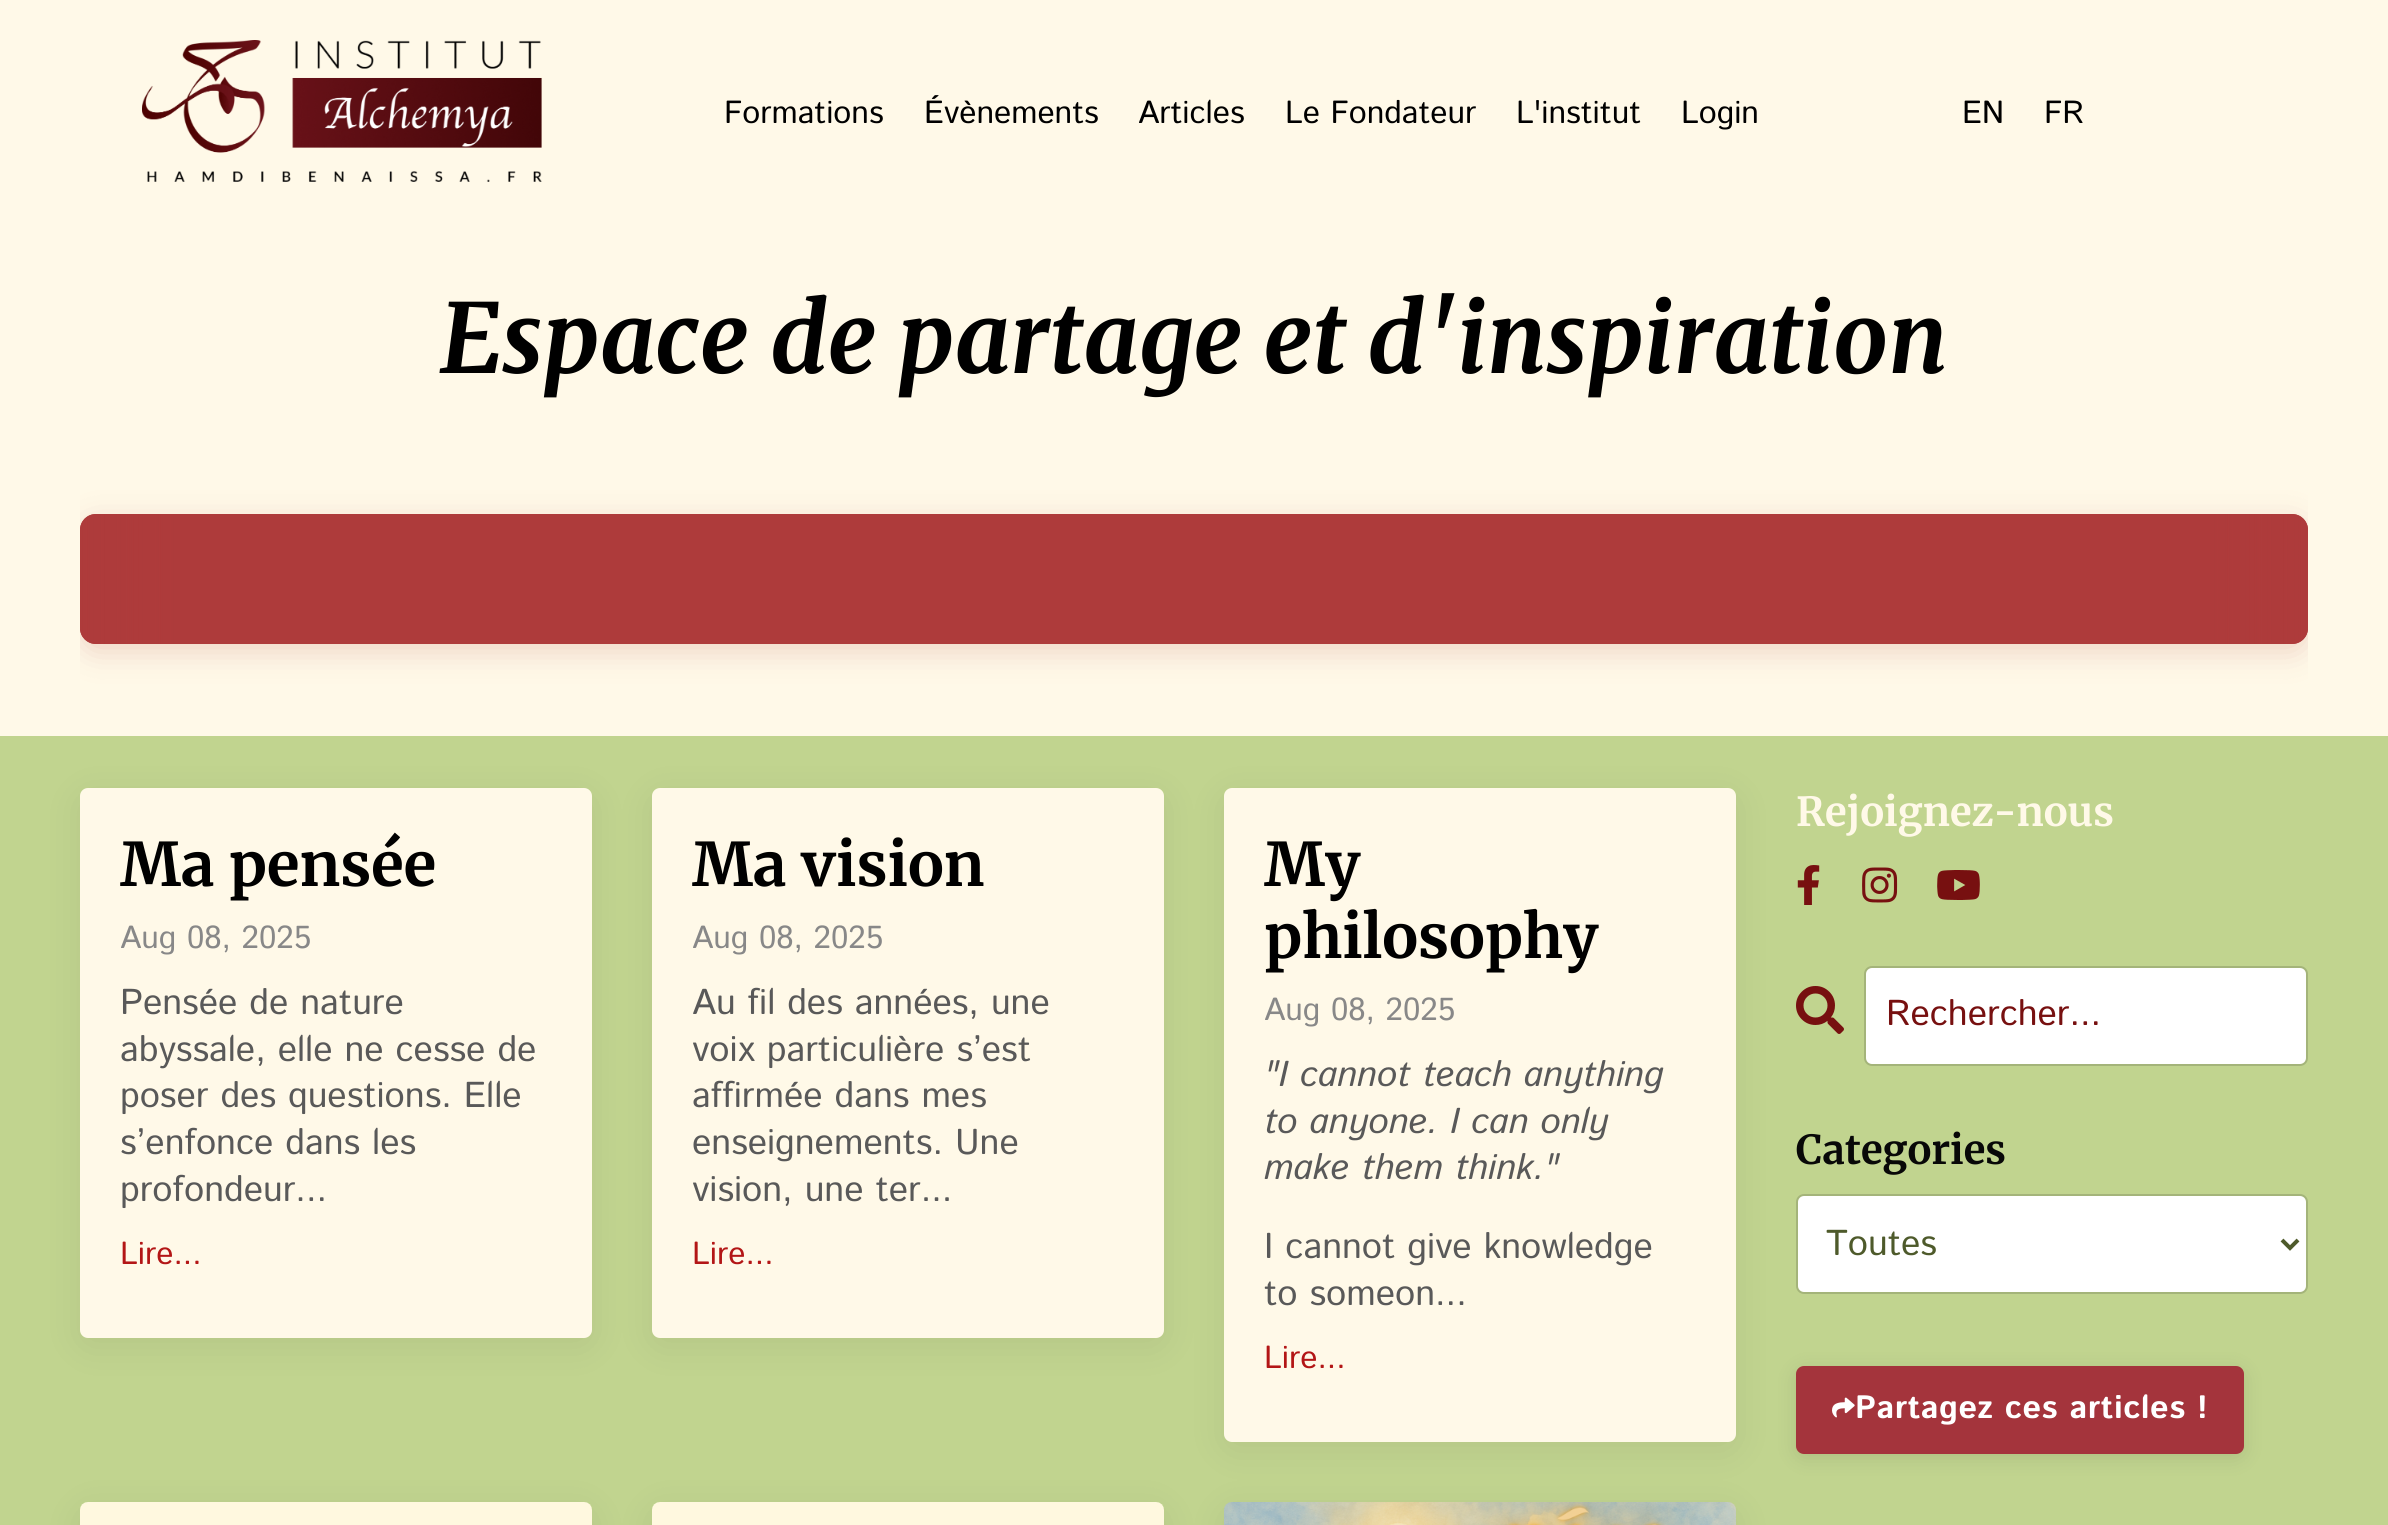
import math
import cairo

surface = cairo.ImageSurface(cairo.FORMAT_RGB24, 2388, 1525)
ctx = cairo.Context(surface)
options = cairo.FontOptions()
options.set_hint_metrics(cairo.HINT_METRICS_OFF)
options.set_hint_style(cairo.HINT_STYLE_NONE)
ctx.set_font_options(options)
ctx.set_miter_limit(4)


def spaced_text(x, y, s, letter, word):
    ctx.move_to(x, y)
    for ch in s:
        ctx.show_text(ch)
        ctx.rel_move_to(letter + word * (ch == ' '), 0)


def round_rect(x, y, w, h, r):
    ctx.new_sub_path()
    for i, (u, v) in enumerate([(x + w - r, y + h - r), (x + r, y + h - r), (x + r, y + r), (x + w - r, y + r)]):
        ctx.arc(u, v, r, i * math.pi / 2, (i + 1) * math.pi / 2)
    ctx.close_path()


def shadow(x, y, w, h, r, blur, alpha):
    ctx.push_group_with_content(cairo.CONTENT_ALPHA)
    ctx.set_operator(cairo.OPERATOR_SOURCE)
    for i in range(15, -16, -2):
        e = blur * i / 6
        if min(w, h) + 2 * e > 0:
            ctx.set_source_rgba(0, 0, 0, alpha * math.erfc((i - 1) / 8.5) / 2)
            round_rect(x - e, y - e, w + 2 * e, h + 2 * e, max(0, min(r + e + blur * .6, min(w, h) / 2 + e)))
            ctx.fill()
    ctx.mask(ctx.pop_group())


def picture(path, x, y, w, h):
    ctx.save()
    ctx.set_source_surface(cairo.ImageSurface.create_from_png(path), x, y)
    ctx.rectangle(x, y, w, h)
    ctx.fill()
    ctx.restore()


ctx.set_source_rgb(1, 0.976, 0.91)
ctx.paint()
picture("img1.png", 142, 40, 400, 142)
ctx.select_font_face("Istok Web")
ctx.set_font_size(32)
ctx.set_source_rgb(0, 0, 0)
ctx.move_to(724, 123)
ctx.show_text("Formations")
ctx.move_to(924, 123)
ctx.show_text("Évènements")
ctx.move_to(1138, 123)
ctx.show_text("Articles")
ctx.move_to(1285, 123)
ctx.show_text("Le Fondateur")
ctx.move_to(1516, 123)
ctx.show_text("L'institut")
ctx.move_to(1681, 123)
ctx.show_text("Login")
ctx.move_to(1962, 123)
ctx.show_text("EN")
ctx.move_to(2044, 123)
ctx.show_text("FR")
ctx.select_font_face("Merriweather", cairo.FONT_SLANT_ITALIC, cairo.FONT_WEIGHT_BOLD)
ctx.set_font_size(96)
ctx.move_to(440, 373)
ctx.show_text("Espace de partage et d'inspiration")
ctx.save()
round_rect(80, 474, 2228, 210, 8)
ctx.clip()
ctx.set_source_rgb(0.682, 0.231, 0.231)
shadow(80, 522, 2228, 130, 16, 15, 0.2)
ctx.restore()
ctx.set_source_rgb(0.682, 0.231, 0.231)
round_rect(80, 514, 2228, 130, 16)
ctx.fill()
gradient = cairo.LinearGradient(80, 579, 180, 579)
gradient.add_color_stop_rgba(0, 0.682, 0.231, 0.231, 1)
gradient.add_color_stop_rgba(1, 0.682, 0.231, 0.231, 0)
ctx.set_source(gradient)
ctx.new_path()
ctx.move_to(96, 514)
ctx.line_to(180, 514)
ctx.line_to(180, 644)
ctx.line_to(96, 644)
ctx.curve_to(87, 644, 80, 637, 80, 628)
ctx.line_to(80, 530)
ctx.curve_to(80, 521, 87, 514, 96, 514)
ctx.close_path()
ctx.fill()
gradient = cairo.LinearGradient(2308, 579, 2208, 579)
gradient.add_color_stop_rgba(0, 0.682, 0.231, 0.231, 1)
gradient.add_color_stop_rgba(1, 0.682, 0.231, 0.231, 0)
ctx.set_source(gradient)
ctx.new_path()
ctx.move_to(2208, 514)
ctx.line_to(2292, 514)
ctx.curve_to(2301, 514, 2308, 521, 2308, 530)
ctx.line_to(2308, 628)
ctx.curve_to(2308, 637, 2301, 644, 2292, 644)
ctx.line_to(2208, 644)
ctx.close_path()
ctx.fill()
ctx.set_source_rgb(0.757, 0.831, 0.561)
ctx.rectangle(0, 736, 2388, 789)
ctx.fill()
ctx.set_source_rgb(0, 0, 0)
shadow(80, 796, 512, 550, 8, 20, 0.07)
ctx.set_source_rgb(1, 0.976, 0.91)
round_rect(80, 788, 512, 550, 8)
ctx.fill()
ctx.select_font_face("Merriweather", cairo.FONT_SLANT_NORMAL, cairo.FONT_WEIGHT_BOLD)
ctx.set_font_size(60)
ctx.set_source_rgb(0, 0, 0)
ctx.move_to(120, 886)
ctx.show_text("Ma pensée")
ctx.select_font_face("Istok Web")
ctx.set_font_size(32)
ctx.set_source_rgb(0.533, 0.533, 0.533)
ctx.move_to(120, 948)
ctx.show_text("Aug 08, 2025")
ctx.set_font_size(36)
ctx.set_source_rgb(0.349, 0.349, 0.349)
ctx.move_to(120, 1014)
ctx.show_text("Pensée de nature")
ctx.move_to(120, 1061)
ctx.show_text("abyssale, elle ne cesse de")
ctx.move_to(120, 1107)
ctx.show_text("poser des questions. Elle")
ctx.move_to(120, 1154)
ctx.show_text("s’enfonce dans les")
ctx.move_to(120, 1201)
ctx.show_text("profondeur...")
ctx.set_font_size(32)
ctx.set_source_rgb(0.702, 0.086, 0.086)
ctx.move_to(120, 1264)
ctx.show_text("Lire...")
ctx.set_source_rgb(0, 0, 0)
shadow(652, 796, 512, 550, 8, 20, 0.07)
ctx.set_source_rgb(1, 0.976, 0.91)
round_rect(652, 788, 512, 550, 8)
ctx.fill()
ctx.select_font_face("Merriweather", cairo.FONT_SLANT_NORMAL, cairo.FONT_WEIGHT_BOLD)
ctx.set_font_size(60)
ctx.set_source_rgb(0, 0, 0)
ctx.move_to(692, 886)
ctx.show_text("Ma vision")
ctx.select_font_face("Istok Web")
ctx.set_font_size(32)
ctx.set_source_rgb(0.533, 0.533, 0.533)
ctx.move_to(692, 948)
ctx.show_text("Aug 08, 2025")
ctx.set_font_size(36)
ctx.set_source_rgb(0.349, 0.349, 0.349)
ctx.move_to(692, 1014)
ctx.show_text("Au fil des années, une")
ctx.move_to(692, 1061)
ctx.show_text("voix particulière s’est")
ctx.move_to(692, 1107)
ctx.show_text("affirmée dans mes")
ctx.move_to(692, 1154)
ctx.show_text("enseignements. Une")
ctx.move_to(692, 1201)
ctx.show_text("vision, une ter...")
ctx.set_font_size(32)
ctx.set_source_rgb(0.702, 0.086, 0.086)
ctx.move_to(692, 1264)
ctx.show_text("Lire...")
picture("img8.png", 1796, 986, 48, 48)
ctx.set_source_rgb(1, 1, 1)
round_rect(1798, 1196, 508, 96, 6)
ctx.fill()
round_rect(1797, 1195, 510, 98, 7)
ctx.set_source_rgba(0, 0, 0, 0.15)
ctx.stroke()
ctx.set_source_rgb(0, 0, 0)
shadow(1796, 1370, 448, 88, 8, 10, 0.1)
ctx.set_source_rgb(0.643, 0.204, 0.235)
round_rect(1798, 1368, 444, 84, 6)
ctx.fill_preserve()
ctx.set_line_width(4)
ctx.stroke()
ctx.set_source_rgb(0, 0, 0)
shadow(1224, 796, 512, 654, 8, 20, 0.07)
ctx.set_source_rgb(1, 0.976, 0.91)
round_rect(1224, 788, 512, 654, 8)
ctx.fill()
ctx.select_font_face("Merriweather", cairo.FONT_SLANT_NORMAL, cairo.FONT_WEIGHT_BOLD)
ctx.set_font_size(60)
ctx.set_source_rgb(0, 0, 0)
ctx.move_to(1264, 886)
ctx.show_text("My")
ctx.move_to(1264, 958)
ctx.show_text("philosophy")
ctx.select_font_face("Istok Web")
ctx.set_font_size(32)
ctx.set_source_rgb(0.533, 0.533, 0.533)
ctx.move_to(1264, 1020)
ctx.show_text("Aug 08, 2025")
ctx.select_font_face("Istok Web", cairo.FONT_SLANT_ITALIC, cairo.FONT_WEIGHT_BOLD)
ctx.set_font_size(36)
ctx.set_source_rgb(0.349, 0.349, 0.349)
ctx.move_to(1264, 1086)
ctx.show_text("\"I cannot teach anything")
ctx.move_to(1264, 1133)
ctx.show_text("to anyone. I can only")
ctx.move_to(1264, 1179)
ctx.show_text("make them think.\"")
ctx.select_font_face("Istok Web")
ctx.move_to(1264, 1258)
ctx.show_text("I cannot give knowledge")
ctx.move_to(1264, 1305)
ctx.show_text("to someon...")
ctx.set_font_size(32)
ctx.set_source_rgb(0.702, 0.086, 0.086)
ctx.move_to(1264, 1368)
ctx.show_text("Lire...")
ctx.set_source_rgb(0, 0, 0)
shadow(80, 1510, 512, 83, 8, 20, 0.07)
picture("img2.png", 80, 1502, 512, 23)
shadow(652, 1510, 512, 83, 8, 20, 0.07)
picture("img3.png", 652, 1502, 512, 23)
shadow(1224, 1510, 512, 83, 8, 20, 0.07)
picture("img4.png", 1224, 1502, 512, 23)
ctx.select_font_face("Merriweather", cairo.FONT_SLANT_NORMAL, cairo.FONT_WEIGHT_BOLD)
ctx.set_font_size(40)
ctx.set_source_rgb(1, 0.976, 0.91)
ctx.move_to(1796, 826)
ctx.show_text("Rejoignez-nous")
picture("img5.png", 1797, 865, 23, 40)
picture("img6.png", 1862, 867, 36, 36)
picture("img7.png", 1937, 870, 43, 30)
ctx.set_source_rgb(1, 1, 1)
round_rect(1866, 968, 440, 96, 6)
ctx.fill()
round_rect(1865, 967, 442, 98, 7)
ctx.set_source_rgba(0, 0, 0, 0.15)
ctx.set_line_width(2)
ctx.stroke()
ctx.select_font_face("Istok Web")
ctx.set_font_size(36)
ctx.set_source_rgb(0.467, 0.063, 0.063)
ctx.move_to(1886, 1025)
ctx.show_text("Rechercher...")
ctx.select_font_face("Merriweather", cairo.FONT_SLANT_NORMAL, cairo.FONT_WEIGHT_BOLD)
ctx.set_font_size(40)
ctx.set_source_rgb(0.035, 0.035, 0.035)
ctx.move_to(1796, 1164)
ctx.show_text("Categories")
ctx.new_path()
ctx.move_to(2282, 1240)
ctx.line_to(2290, 1248)
ctx.line_to(2298, 1240)
ctx.set_source_rgb(0.306, 0.353, 0.169)
ctx.set_line_width(4)
ctx.stroke()
ctx.select_font_face("Istok Web")
ctx.set_font_size(36)
ctx.move_to(1826, 1255)
ctx.show_text("Toutes")
picture("img9.png", 1832, 1397, 23, 21)
ctx.select_font_face("Istok Web", cairo.FONT_SLANT_NORMAL, cairo.FONT_WEIGHT_BOLD)
ctx.set_font_size(32.4)
ctx.set_source_rgb(1, 1, 1)
spaced_text(1855, 1418, "Partagez ces articles !", 0.5, 0)
surface.write_to_png("page.png")
